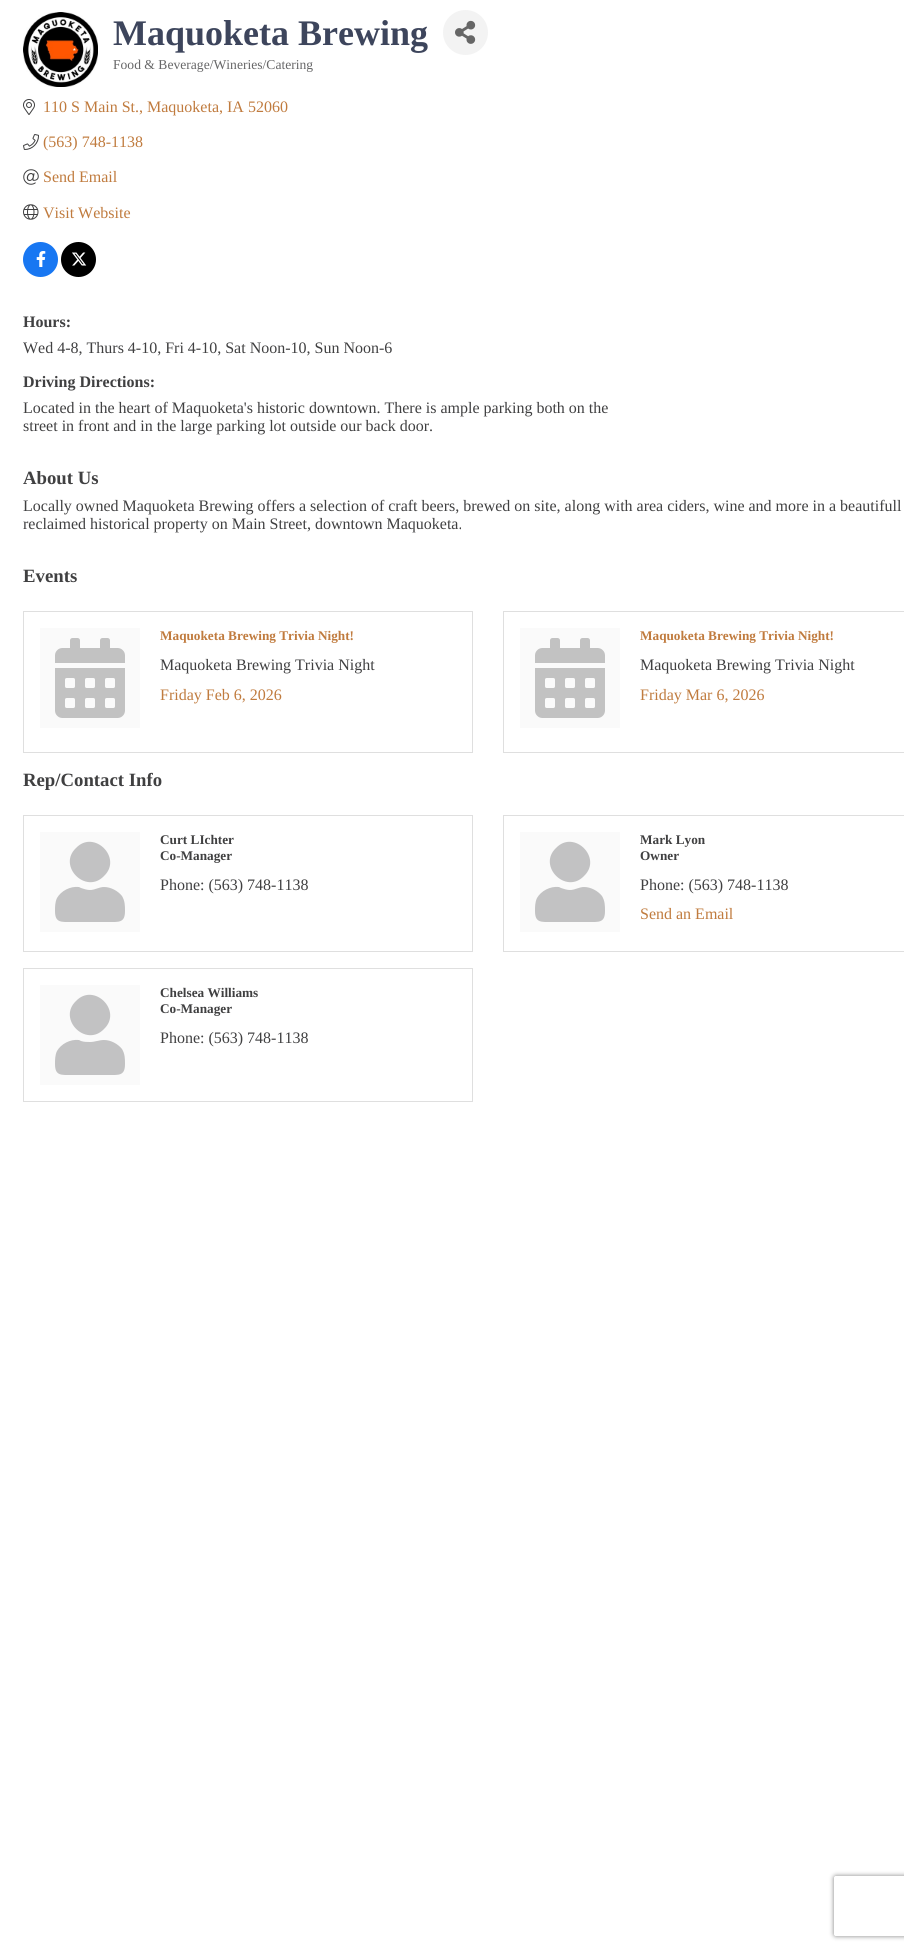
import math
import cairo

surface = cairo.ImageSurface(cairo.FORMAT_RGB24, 904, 1950)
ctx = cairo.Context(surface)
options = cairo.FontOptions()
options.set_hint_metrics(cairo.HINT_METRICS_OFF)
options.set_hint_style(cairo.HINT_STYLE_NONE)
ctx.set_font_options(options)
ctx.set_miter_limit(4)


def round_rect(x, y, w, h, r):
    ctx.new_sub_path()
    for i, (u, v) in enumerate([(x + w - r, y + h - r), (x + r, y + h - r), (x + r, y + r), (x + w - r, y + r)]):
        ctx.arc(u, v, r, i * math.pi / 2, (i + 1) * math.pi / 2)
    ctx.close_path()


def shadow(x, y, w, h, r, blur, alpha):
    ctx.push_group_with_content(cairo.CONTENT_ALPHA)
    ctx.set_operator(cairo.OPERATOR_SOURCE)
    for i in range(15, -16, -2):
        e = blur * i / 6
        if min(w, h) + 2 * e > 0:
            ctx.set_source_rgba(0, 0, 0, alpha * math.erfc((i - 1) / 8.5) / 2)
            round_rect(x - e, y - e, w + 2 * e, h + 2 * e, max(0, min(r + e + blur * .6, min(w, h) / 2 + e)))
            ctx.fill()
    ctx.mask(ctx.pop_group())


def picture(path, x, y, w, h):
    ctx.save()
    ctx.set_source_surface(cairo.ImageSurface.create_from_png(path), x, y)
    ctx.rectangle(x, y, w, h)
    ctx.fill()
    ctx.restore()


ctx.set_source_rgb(1, 1, 1)
ctx.paint()
picture("img1.png", 23, 12, 75, 75)
ctx.select_font_face("Liberation Serif", cairo.FONT_SLANT_NORMAL, cairo.FONT_WEIGHT_BOLD)
ctx.set_font_size(36)
ctx.set_source_rgb(0.239, 0.271, 0.361)
ctx.move_to(113, 45)
ctx.show_text("Maquoketa Brewing")
ctx.set_source_rgb(0.953, 0.953, 0.953)
ctx.new_path()
ctx.arc(465.5, 32.5, 22.5, 0, 2 * math.pi)
ctx.fill()
picture("img2.png", 455, 20, 21, 24)
ctx.select_font_face("Liberation Serif")
ctx.set_font_size(13.6)
ctx.set_source_rgb(0.4, 0.4, 0.404)
ctx.move_to(113, 69)
ctx.show_text("Food & Beverage/Wineries/Catering")
picture("img3.png", 23, 99, 12, 16)
ctx.set_font_size(16)
ctx.set_source_rgb(0.753, 0.482, 0.243)
ctx.move_to(43, 112)
ctx.show_text("110 S Main St., Maquoketa, IA 52060")
picture("img4.png", 23, 134, 16, 16)
ctx.move_to(43, 147)
ctx.show_text("(563) 748-1138")
picture("img5.png", 23, 169, 16, 16)
ctx.move_to(43, 182)
ctx.show_text("Send Email")
picture("img6.png", 23, 204, 16, 16)
ctx.move_to(43, 218)
ctx.show_text("Visit Website")
ctx.set_source_rgb(0.094, 0.467, 0.949)
ctx.new_path()
ctx.arc(40.5, 259.5, 17.5, 0, 2 * math.pi)
ctx.fill()
picture("img7.png", 36, 251, 10, 16)
ctx.set_source_rgb(0, 0, 0)
ctx.arc(78.5, 259.5, 17.5, 0, 2 * math.pi)
ctx.fill()
picture("img8.png", 72, 252, 15, 14)
ctx.select_font_face("Liberation Serif", cairo.FONT_SLANT_NORMAL, cairo.FONT_WEIGHT_BOLD)
ctx.set_source_rgb(0.251, 0.251, 0.255)
ctx.move_to(23, 327)
ctx.show_text("Hours:")
ctx.select_font_face("Liberation Serif")
ctx.move_to(23, 353)
ctx.show_text("Wed 4-8, Thurs 4-10, Fri 4-10, Sat Noon-10, Sun Noon-6")
ctx.select_font_face("Liberation Serif", cairo.FONT_SLANT_NORMAL, cairo.FONT_WEIGHT_BOLD)
ctx.move_to(23, 387)
ctx.show_text("Driving Directions:")
ctx.select_font_face("Liberation Serif")
ctx.move_to(23, 413)
ctx.show_text("Located in the heart of Maquoketa's historic downtown. There is ample parking both on the")
ctx.move_to(23, 431)
ctx.show_text("street in front and in the large parking lot outside our back door.")
ctx.select_font_face("Liberation Serif", cairo.FONT_SLANT_NORMAL, cairo.FONT_WEIGHT_BOLD)
ctx.set_font_size(18.75)
ctx.move_to(23, 484)
ctx.show_text("About Us")
ctx.select_font_face("Liberation Serif")
ctx.set_font_size(16)
ctx.move_to(23, 511)
ctx.show_text("Locally owned Maquoketa Brewing offers a selection of craft beers, brewed on site, along with area ciders, wine and more in a beautifull")
ctx.move_to(23, 529)
ctx.show_text("reclaimed historical property on Main Street, downtown Maquoketa.")
ctx.select_font_face("Liberation Serif", cairo.FONT_SLANT_NORMAL, cairo.FONT_WEIGHT_BOLD)
ctx.set_font_size(18.75)
ctx.move_to(23, 582)
ctx.show_text("Events")
ctx.rectangle(23.5, 611.5, 449, 141)
ctx.set_source_rgb(0.875, 0.875, 0.875)
ctx.set_line_width(1)
ctx.stroke()
ctx.set_source_rgb(0.98, 0.98, 0.98)
ctx.rectangle(40, 628, 100, 100)
ctx.fill()
picture("img9.png", 55, 638, 70, 80)
ctx.set_font_size(13.25)
ctx.set_source_rgb(0.753, 0.482, 0.243)
ctx.move_to(160, 640)
ctx.show_text("Maquoketa Brewing Trivia Night!")
ctx.select_font_face("Liberation Serif")
ctx.set_font_size(16)
ctx.set_source_rgb(0.251, 0.251, 0.255)
ctx.move_to(160, 670)
ctx.show_text("Maquoketa Brewing Trivia Night")
ctx.set_source_rgb(0.753, 0.482, 0.243)
ctx.move_to(160, 700)
ctx.show_text("Friday Feb 6, 2026")
ctx.rectangle(503.5, 611.5, 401, 141)
ctx.set_source_rgb(0.875, 0.875, 0.875)
ctx.stroke()
ctx.set_source_rgb(0.98, 0.98, 0.98)
ctx.rectangle(520, 628, 100, 100)
ctx.fill()
picture("img9.png", 535, 638, 70, 80)
ctx.select_font_face("Liberation Serif", cairo.FONT_SLANT_NORMAL, cairo.FONT_WEIGHT_BOLD)
ctx.set_font_size(13.25)
ctx.set_source_rgb(0.753, 0.482, 0.243)
ctx.move_to(640, 640)
ctx.show_text("Maquoketa Brewing Trivia Night!")
ctx.select_font_face("Liberation Serif")
ctx.set_font_size(16)
ctx.set_source_rgb(0.251, 0.251, 0.255)
ctx.move_to(640, 670)
ctx.show_text("Maquoketa Brewing Trivia Night")
ctx.set_source_rgb(0.753, 0.482, 0.243)
ctx.move_to(640, 700)
ctx.show_text("Friday Mar 6, 2026")
ctx.select_font_face("Liberation Serif", cairo.FONT_SLANT_NORMAL, cairo.FONT_WEIGHT_BOLD)
ctx.set_font_size(18.75)
ctx.set_source_rgb(0.251, 0.251, 0.255)
ctx.move_to(23, 786)
ctx.show_text("Rep/Contact Info")
ctx.rectangle(23.5, 815.5, 449, 136)
ctx.set_source_rgb(0.875, 0.875, 0.875)
ctx.stroke()
ctx.set_source_rgb(0.98, 0.98, 0.98)
ctx.rectangle(40, 832, 100, 100)
ctx.fill()
ctx.set_source_rgb(0.761, 0.761, 0.765)
ctx.new_path()
ctx.move_to(104, 876)
ctx.curve_to(86, 895, 57, 866, 76, 848)
ctx.curve_to(94, 829, 123, 858, 104, 876)
ctx.close_path()
ctx.move_to(104, 887)
ctx.curve_to(111, 887, 118, 891, 122, 896)
ctx.curve_to(125, 901, 125, 906, 125, 911)
ctx.curve_to(125, 923, 119, 922, 108, 922)
ctx.line_to(72, 922)
ctx.curve_to(61, 922, 55, 923, 55, 911)
ctx.curve_to(55, 907, 55, 902, 57, 898)
ctx.curve_to(61, 891, 70, 886, 79, 887)
ctx.line_to(81, 888)
ctx.curve_to(84, 889, 87, 890, 90, 890)
ctx.curve_to(95, 890, 99, 887, 104, 887)
ctx.close_path()
ctx.fill()
ctx.set_font_size(13.25)
ctx.set_source_rgb(0.251, 0.251, 0.255)
ctx.move_to(160, 844)
ctx.show_text("Curt LIchter")
ctx.move_to(160, 860)
ctx.show_text("Co-Manager")
ctx.select_font_face("Liberation Serif")
ctx.set_font_size(16)
ctx.move_to(160, 890)
ctx.show_text("Phone: (563) 748-1138")
ctx.rectangle(503.5, 815.5, 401, 136)
ctx.set_source_rgb(0.875, 0.875, 0.875)
ctx.stroke()
ctx.set_source_rgb(0.98, 0.98, 0.98)
ctx.rectangle(520, 832, 100, 100)
ctx.fill()
ctx.set_source_rgb(0.761, 0.761, 0.765)
ctx.new_path()
ctx.move_to(584, 876)
ctx.curve_to(566, 895, 537, 866, 556, 848)
ctx.curve_to(574, 829, 603, 858, 584, 876)
ctx.close_path()
ctx.move_to(584, 887)
ctx.curve_to(591, 887, 598, 891, 602, 896)
ctx.curve_to(605, 901, 605, 906, 605, 911)
ctx.curve_to(605, 923, 599, 922, 588, 922)
ctx.line_to(552, 922)
ctx.curve_to(541, 922, 535, 923, 535, 911)
ctx.curve_to(535, 907, 535, 902, 537, 898)
ctx.curve_to(541, 891, 550, 886, 559, 887)
ctx.line_to(561, 888)
ctx.curve_to(564, 889, 567, 890, 570, 890)
ctx.curve_to(575, 890, 579, 887, 584, 887)
ctx.close_path()
ctx.fill()
ctx.select_font_face("Liberation Serif", cairo.FONT_SLANT_NORMAL, cairo.FONT_WEIGHT_BOLD)
ctx.set_font_size(13.25)
ctx.set_source_rgb(0.251, 0.251, 0.255)
ctx.move_to(640, 844)
ctx.show_text("Mark Lyon")
ctx.move_to(640, 860)
ctx.show_text("Owner")
ctx.select_font_face("Liberation Serif")
ctx.set_font_size(16)
ctx.move_to(640, 890)
ctx.show_text("Phone: (563) 748-1138")
ctx.set_source_rgb(0.753, 0.482, 0.243)
ctx.move_to(640, 919)
ctx.show_text("Send an Email")
ctx.rectangle(23.5, 968.5, 449, 133)
ctx.set_source_rgb(0.875, 0.875, 0.875)
ctx.stroke()
ctx.set_source_rgb(0.98, 0.98, 0.98)
ctx.rectangle(40, 985, 100, 100)
ctx.fill()
ctx.set_source_rgb(0.761, 0.761, 0.765)
ctx.new_path()
ctx.move_to(104, 1029)
ctx.curve_to(86, 1048, 57, 1019, 76, 1001)
ctx.curve_to(94, 982, 123, 1011, 104, 1029)
ctx.close_path()
ctx.move_to(104, 1040)
ctx.curve_to(111, 1040, 118, 1044, 122, 1049)
ctx.curve_to(125, 1054, 125, 1059, 125, 1064)
ctx.curve_to(125, 1076, 119, 1075, 108, 1075)
ctx.line_to(72, 1075)
ctx.curve_to(61, 1075, 55, 1076, 55, 1064)
ctx.curve_to(55, 1060, 55, 1055, 57, 1051)
ctx.curve_to(61, 1044, 70, 1039, 79, 1040)
ctx.line_to(81, 1041)
ctx.curve_to(84, 1042, 87, 1042, 90, 1042)
ctx.curve_to(95, 1042, 99, 1040, 104, 1040)
ctx.close_path()
ctx.fill()
ctx.select_font_face("Liberation Serif", cairo.FONT_SLANT_NORMAL, cairo.FONT_WEIGHT_BOLD)
ctx.set_font_size(13.25)
ctx.set_source_rgb(0.251, 0.251, 0.255)
ctx.move_to(160, 997)
ctx.show_text("Chelsea Williams")
ctx.move_to(160, 1013)
ctx.show_text("Co-Manager")
ctx.select_font_face("Liberation Serif")
ctx.set_font_size(16)
ctx.move_to(160, 1043)
ctx.show_text("Phone: (563) 748-1138")
ctx.save()
ctx.set_fill_rule(cairo.FILL_RULE_EVEN_ODD)
ctx.new_path()
ctx.move_to(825, 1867)
ctx.line_to(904, 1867)
ctx.line_to(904, 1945)
ctx.line_to(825, 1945)
ctx.close_path()
ctx.move_to(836, 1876)
ctx.line_to(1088, 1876)
ctx.curve_to(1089, 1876, 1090, 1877, 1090, 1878)
ctx.line_to(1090, 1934)
ctx.curve_to(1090, 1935, 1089, 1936, 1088, 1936)
ctx.line_to(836, 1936)
ctx.curve_to(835, 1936, 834, 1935, 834, 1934)
ctx.line_to(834, 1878)
ctx.curve_to(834, 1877, 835, 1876, 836, 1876)
ctx.close_path()
ctx.clip()
ctx.set_source_rgb(0.502, 0.502, 0.502)
shadow(834, 1876, 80, 60, 2, 2.5, 1)
ctx.restore()
surface.write_to_png("page.png")
